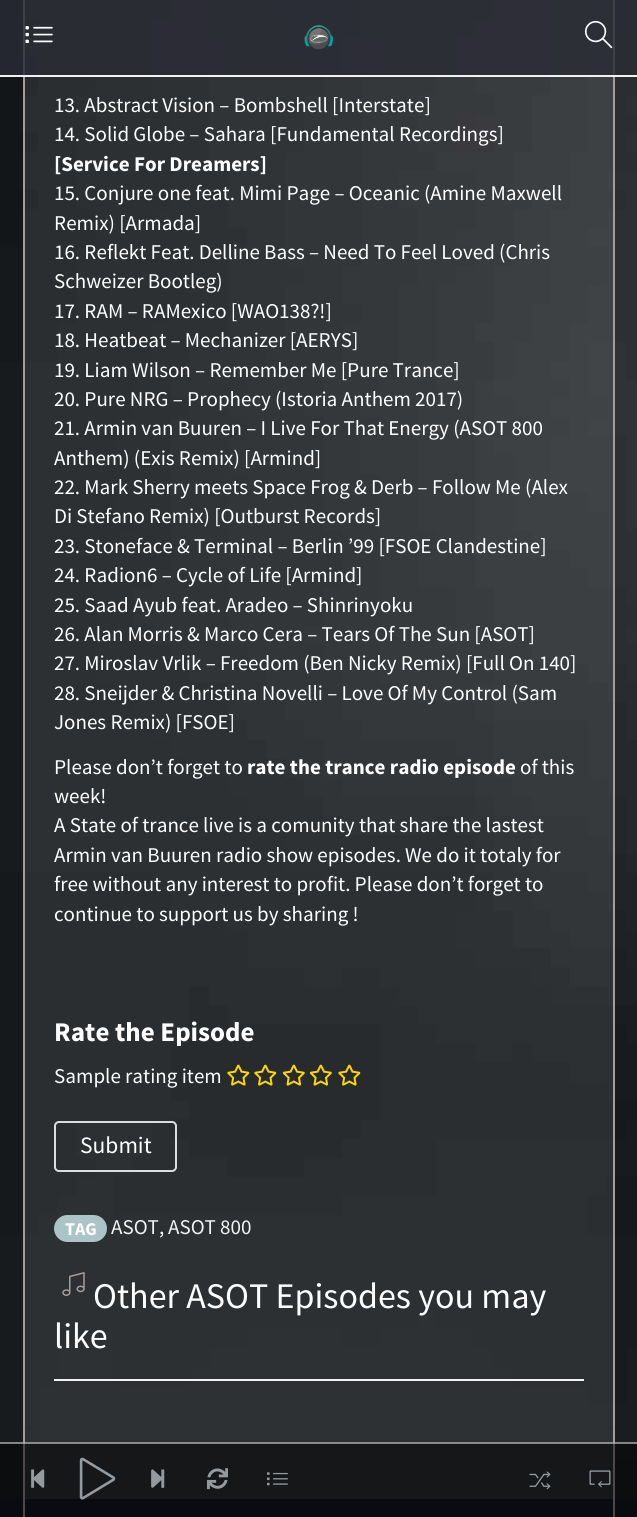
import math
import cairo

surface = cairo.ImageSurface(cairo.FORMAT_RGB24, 637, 1517)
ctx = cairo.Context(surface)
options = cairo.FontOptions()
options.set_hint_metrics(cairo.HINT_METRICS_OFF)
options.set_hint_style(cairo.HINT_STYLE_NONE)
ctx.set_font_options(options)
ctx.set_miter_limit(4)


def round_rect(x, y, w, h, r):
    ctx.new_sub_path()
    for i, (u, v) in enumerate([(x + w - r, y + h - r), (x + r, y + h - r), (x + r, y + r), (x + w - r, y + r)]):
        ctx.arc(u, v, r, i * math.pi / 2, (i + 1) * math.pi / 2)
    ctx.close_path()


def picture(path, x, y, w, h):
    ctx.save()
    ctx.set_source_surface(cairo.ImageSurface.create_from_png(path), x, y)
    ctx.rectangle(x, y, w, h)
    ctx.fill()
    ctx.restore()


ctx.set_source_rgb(0.075, 0.09, 0.133)
ctx.paint()
picture("img1.png", 0, 0, 637, 1499)
ctx.rectangle(24, -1, 590, 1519)
ctx.set_source_rgb(0.651, 0.612, 0.604)
ctx.stroke()
ctx.set_source_rgba(0.165, 0.169, 0.208, 0.81)
ctx.rectangle(0, 0, 637, 75)
ctx.fill()
picture("img2.png", 25, 26, 28, 18)
picture("img3.png", 304, 25, 30, 25)
picture("img4.png", 584, 20, 29, 29)
ctx.set_source_rgb(0.949, 0.949, 0.949)
ctx.rectangle(0, 75, 637, 2)
ctx.fill()
ctx.select_font_face("Source Sans Pro")
ctx.set_font_size(21)
ctx.set_source_rgb(1, 1, 1)
ctx.move_to(54, 112)
ctx.show_text("13. Abstract Vision – Bombshell [Interstate]")
ctx.move_to(54, 141)
ctx.show_text("14. Solid Globe – Sahara [Fundamental Recordings]")
ctx.select_font_face("Source Sans Pro", cairo.FONT_SLANT_NORMAL, cairo.FONT_WEIGHT_BOLD)
ctx.move_to(54, 171)
ctx.show_text("[Service For Dreamers]")
ctx.select_font_face("Source Sans Pro")
ctx.move_to(54, 200)
ctx.show_text("15. Conjure one feat. Mimi Page – Oceanic (Amine Maxwell")
ctx.move_to(54, 230)
ctx.show_text("Remix) [Armada]")
ctx.move_to(54, 259)
ctx.show_text("16. Reflekt Feat. Delline Bass – Need To Feel Loved (Chris")
ctx.move_to(54, 288)
ctx.show_text("Schweizer Bootleg)")
ctx.move_to(54, 318)
ctx.show_text("17. RAM – RAMexico [WAO138?!]")
ctx.move_to(54, 347)
ctx.show_text("18. Heatbeat – Mechanizer [AERYS]")
ctx.move_to(54, 377)
ctx.show_text("19. Liam Wilson – Remember Me [Pure Trance]")
ctx.move_to(54, 406)
ctx.show_text("20. Pure NRG – Prophecy (Istoria Anthem 2017)")
ctx.move_to(54, 435)
ctx.show_text("21. Armin van Buuren – I Live For That Energy (ASOT 800")
ctx.move_to(54, 465)
ctx.show_text("Anthem) (Exis Remix) [Armind]")
ctx.move_to(54, 494)
ctx.show_text("22. Mark Sherry meets Space Frog & Derb – Follow Me (Alex")
ctx.move_to(54, 523)
ctx.show_text("Di Stefano Remix) [Outburst Records]")
ctx.move_to(54, 553)
ctx.show_text("23. Stoneface & Terminal – Berlin ’99 [FSOE Clandestine]")
ctx.move_to(54, 582)
ctx.show_text("24. Radion6 – Cycle of Life [Armind]")
ctx.move_to(54, 612)
ctx.show_text("25. Saad Ayub feat. Aradeo – Shinrinyoku")
ctx.move_to(54, 641)
ctx.show_text("26. Alan Morris & Marco Cera – Tears Of The Sun [ASOT]")
ctx.move_to(54, 670)
ctx.show_text("27. Miroslav Vrlik – Freedom (Ben Nicky Remix) [Full On 140]")
ctx.move_to(54, 700)
ctx.show_text("28. Sneijder & Christina Novelli – Love Of My Control (Sam")
ctx.move_to(54, 729)
ctx.show_text("Jones Remix) [FSOE]")
ctx.move_to(54, 774)
ctx.show_text("Please don’t forget to")
ctx.select_font_face("Source Sans Pro", cairo.FONT_SLANT_NORMAL, cairo.FONT_WEIGHT_BOLD)
ctx.move_to(247, 774)
ctx.show_text("rate the trance radio episode")
ctx.select_font_face("Source Sans Pro")
ctx.move_to(520, 774)
ctx.show_text("of this")
ctx.move_to(54, 803)
ctx.show_text("week!")
ctx.move_to(54, 832)
ctx.show_text("A State of trance live is a comunity that share the lastest")
ctx.move_to(54, 862)
ctx.show_text("Armin van Buuren radio show episodes. We do it totaly for")
ctx.move_to(54, 891)
ctx.show_text("free without any interest to profit. Please don’t forget to")
ctx.move_to(54, 921)
ctx.show_text("continue to support us by sharing !")
ctx.select_font_face("Source Sans Pro", cairo.FONT_SLANT_NORMAL, cairo.FONT_WEIGHT_BOLD)
ctx.set_font_size(27)
ctx.move_to(54, 1041)
ctx.show_text("Rate the Episode")
ctx.select_font_face("Source Sans Pro")
ctx.set_font_size(21)
ctx.move_to(54, 1083)
ctx.show_text("Sample rating item")
picture("img5.png", 227, 1064, 23, 22)
picture("img5.png", 254, 1064, 23, 22)
picture("img6.png", 282, 1064, 23, 22)
picture("img6.png", 309, 1064, 23, 22)
picture("img5.png", 338, 1064, 23, 22)
round_rect(55, 1122, 121, 49, 4)
ctx.set_source_rgb(0.867, 0.867, 0.867)
ctx.stroke()
ctx.set_font_size(23.5)
ctx.set_source_rgb(1, 1, 1)
ctx.move_to(80, 1153)
ctx.show_text("Submit")
ctx.set_source_rgb(0.667, 0.769, 0.784)
round_rect(54, 1215, 53, 27, 13.5)
ctx.fill()
ctx.select_font_face("Source Sans Pro", cairo.FONT_SLANT_NORMAL, cairo.FONT_WEIGHT_BOLD)
ctx.set_font_size(18)
ctx.set_source_rgb(1, 1, 1)
ctx.move_to(65, 1235)
ctx.show_text("TAG")
ctx.select_font_face("Source Sans Pro")
ctx.set_font_size(21)
ctx.set_source_rgb(0.949, 0.949, 0.949)
ctx.move_to(111, 1234)
ctx.show_text("ASOT")
ctx.set_source_rgb(1, 1, 1)
ctx.move_to(159, 1234)
ctx.show_text(",")
ctx.set_source_rgb(0.949, 0.949, 0.949)
ctx.move_to(168, 1234)
ctx.show_text("ASOT 800")
picture("img7.png", 62, 1272, 23, 24)
ctx.set_font_size(36)
ctx.set_source_rgb(1, 1, 1)
ctx.move_to(93, 1308)
ctx.show_text("Other ASOT Episodes you may")
ctx.move_to(54, 1348)
ctx.show_text("like")
ctx.set_source_rgb(0.949, 0.949, 0.949)
ctx.rectangle(54, 1379, 530, 2)
ctx.fill()
ctx.set_source_rgba(0, 0, 0, 0.53)
ctx.rectangle(0, 1442, 637, 75)
ctx.fill()
ctx.set_source_rgba(1, 1, 1, 0.5)
ctx.rectangle(0, 1442, 637, 2)
ctx.fill()
ctx.set_source_rgba(0, 0, 0, 0.04)
ctx.new_path()
ctx.move_to(0, 1443)
ctx.line_to(0, 1445)
ctx.line_to(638, 1445)
ctx.line_to(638, 1430)
ctx.line_to(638, 1443)
ctx.close_path()
ctx.fill()
ctx.new_path()
ctx.move_to(0, 1427)
ctx.line_to(0, 1428)
ctx.line_to(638, 1428)
ctx.line_to(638, 1442)
ctx.line_to(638, 1427)
ctx.close_path()
ctx.fill()
picture("img8.png", 31, 1469, 14, 19)
picture("img9.png", 79, 1457, 37, 43)
picture("img10.png", 151, 1469, 14, 19)
picture("img11.png", 207, 1468, 21, 22)
picture("img12.png", 267, 1472, 21, 14)
picture("img13.png", 529, 1471, 22, 19)
picture("img14.png", 589, 1470, 22, 18)
surface.write_to_png("page.png")
